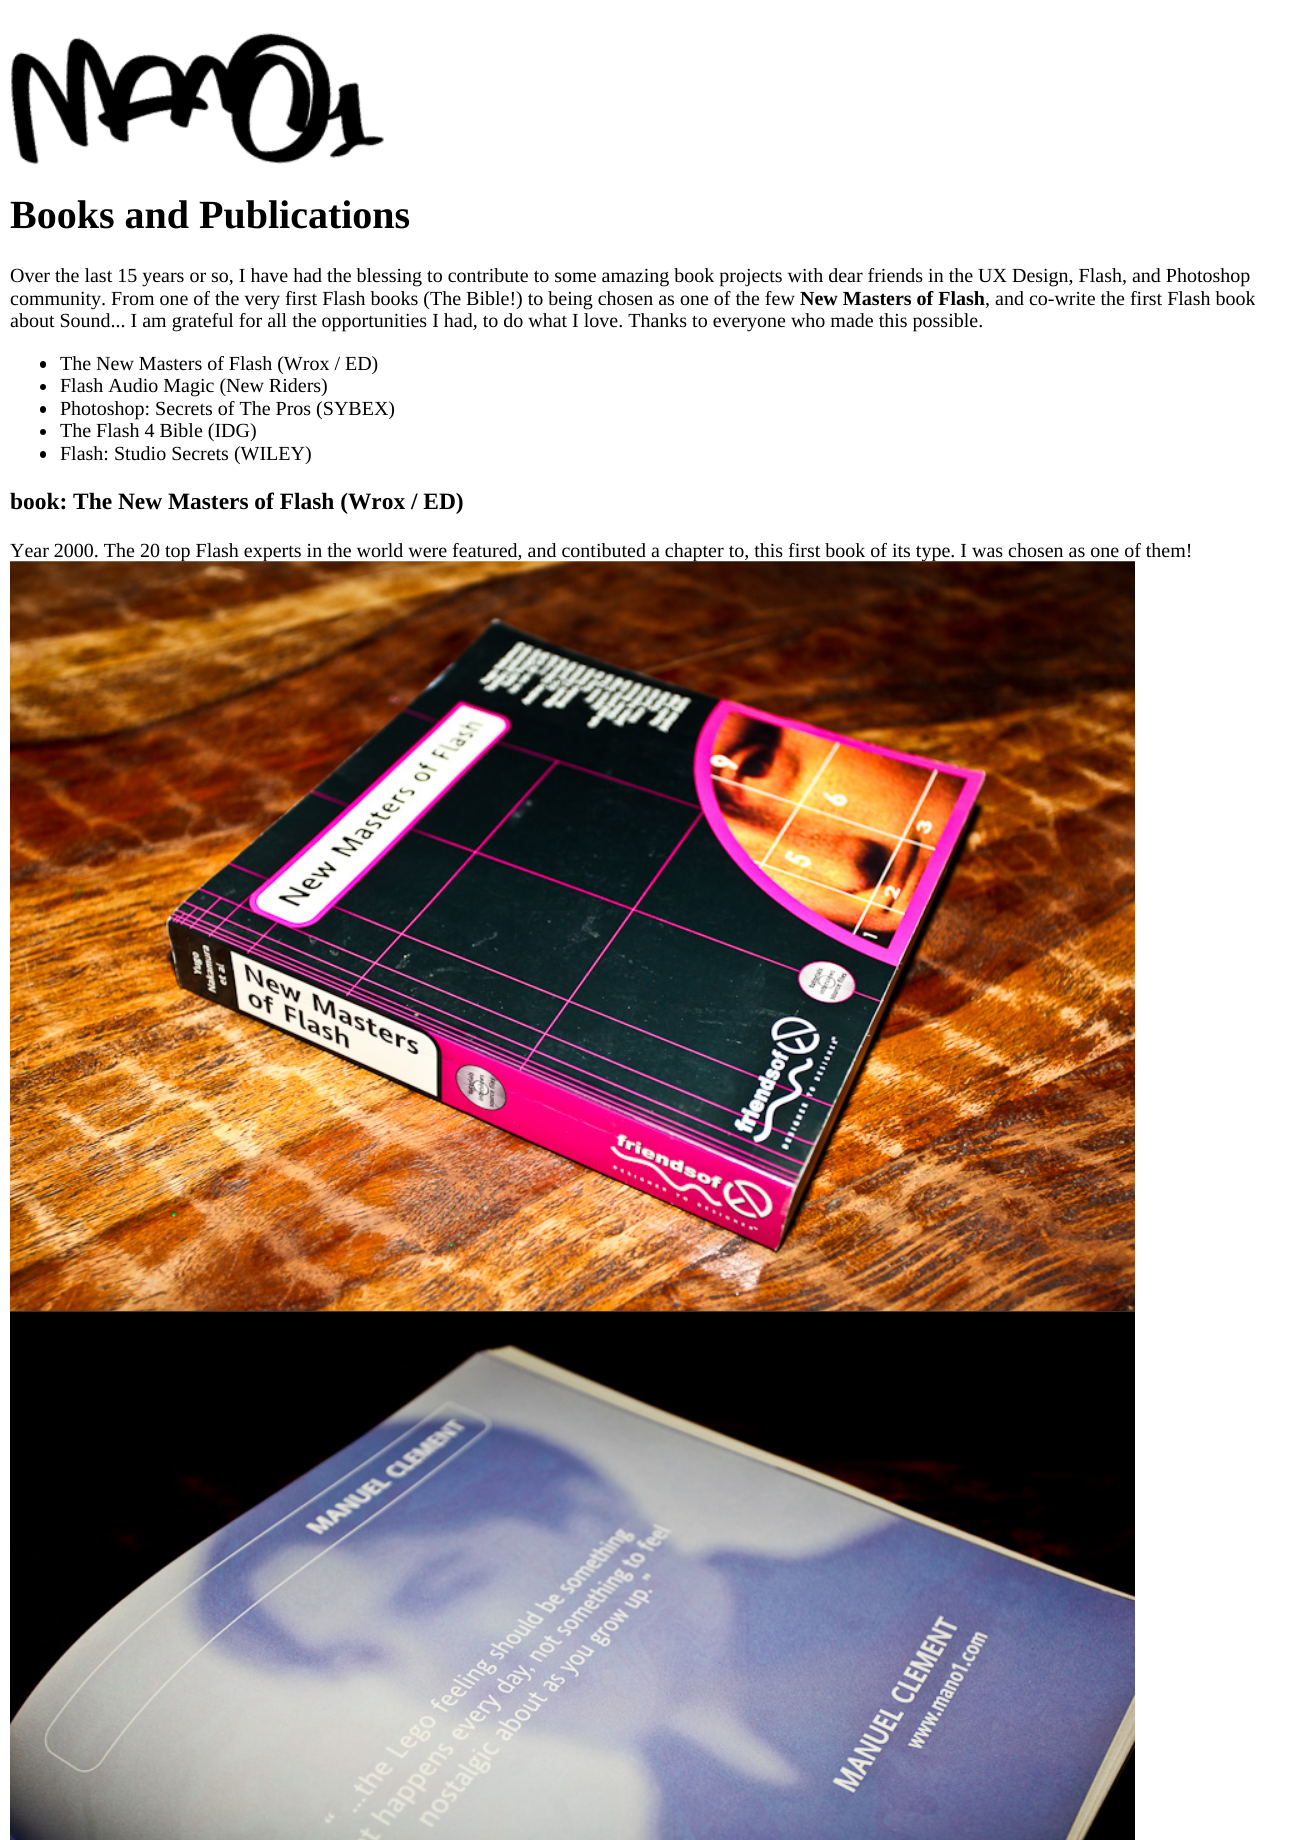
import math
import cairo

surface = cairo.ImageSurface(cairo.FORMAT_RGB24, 1310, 1840)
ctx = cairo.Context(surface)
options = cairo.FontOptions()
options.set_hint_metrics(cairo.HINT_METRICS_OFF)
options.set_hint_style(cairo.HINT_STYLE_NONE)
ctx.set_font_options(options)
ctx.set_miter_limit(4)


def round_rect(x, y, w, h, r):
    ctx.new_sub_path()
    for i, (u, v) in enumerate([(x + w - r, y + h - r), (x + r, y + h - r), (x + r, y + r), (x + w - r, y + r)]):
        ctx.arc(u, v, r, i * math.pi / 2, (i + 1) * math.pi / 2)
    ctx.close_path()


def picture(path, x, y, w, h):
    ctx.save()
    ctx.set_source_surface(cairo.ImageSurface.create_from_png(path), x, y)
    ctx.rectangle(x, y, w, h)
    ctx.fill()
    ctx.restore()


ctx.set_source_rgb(1, 1, 1)
ctx.paint()
picture("img1.png", 10, 32, 374, 133)
ctx.select_font_face("Liberation Serif", cairo.FONT_SLANT_NORMAL, cairo.FONT_WEIGHT_BOLD)
ctx.set_font_size(40)
ctx.set_source_rgb(0, 0, 0)
ctx.move_to(10, 228)
ctx.show_text("Books and Publications")
ctx.select_font_face("Liberation Serif")
ctx.set_font_size(20)
ctx.move_to(10, 282)
ctx.show_text("Over the last 15 years or so, I have had the blessing to contribute to some amazing book projects with dear friends in the UX Design, Flash, and Photoshop")
ctx.move_to(10, 305)
ctx.show_text("community. From one of the very first Flash books (The Bible!) to being chosen as one of the few")
ctx.select_font_face("Liberation Serif", cairo.FONT_SLANT_NORMAL, cairo.FONT_WEIGHT_BOLD)
ctx.move_to(800, 305)
ctx.show_text("New Masters of Flash")
ctx.select_font_face("Liberation Serif")
ctx.move_to(985, 305)
ctx.show_text(", and co-write the first Flash book")
ctx.move_to(10, 327)
ctx.show_text("about Sound... I am grateful for all the opportunities I had, to do what I love. Thanks to everyone who made this possible.")
round_rect(40, 361, 6, 7, 3)
ctx.fill()
ctx.move_to(60, 370)
ctx.show_text("The New Masters of Flash (Wrox / ED)")
ctx.new_path()
ctx.arc(43, 387, 3, 0, 2 * math.pi)
ctx.fill()
ctx.move_to(60, 392)
ctx.show_text("Flash Audio Magic (New Riders)")
round_rect(40, 406, 6, 7, 3)
ctx.fill()
ctx.move_to(60, 415)
ctx.show_text("Photoshop: Secrets of The Pros (SYBEX)")
ctx.new_path()
ctx.arc(43, 432, 3, 0, 2 * math.pi)
ctx.fill()
ctx.move_to(60, 437)
ctx.show_text("The Flash 4 Bible (IDG)")
round_rect(40, 451, 6, 7, 3)
ctx.fill()
ctx.move_to(60, 460)
ctx.show_text("Flash: Studio Secrets (WILEY)")
ctx.select_font_face("Liberation Serif", cairo.FONT_SLANT_NORMAL, cairo.FONT_WEIGHT_BOLD)
ctx.set_font_size(23.4)
ctx.move_to(10, 509)
ctx.show_text("book: The New Masters of Flash (Wrox / ED)")
ctx.select_font_face("Liberation Serif")
ctx.set_font_size(20)
ctx.move_to(10, 557)
ctx.show_text("Year 2000. The 20 top Flash experts in the world were featured, and contibuted a chapter to, this first book of its type. I was chosen as one of them!")
picture("img2.png", 10, 561, 1125, 751)
picture("img3.png", 10, 1311, 1125, 529)
surface.write_to_png("page.png")
